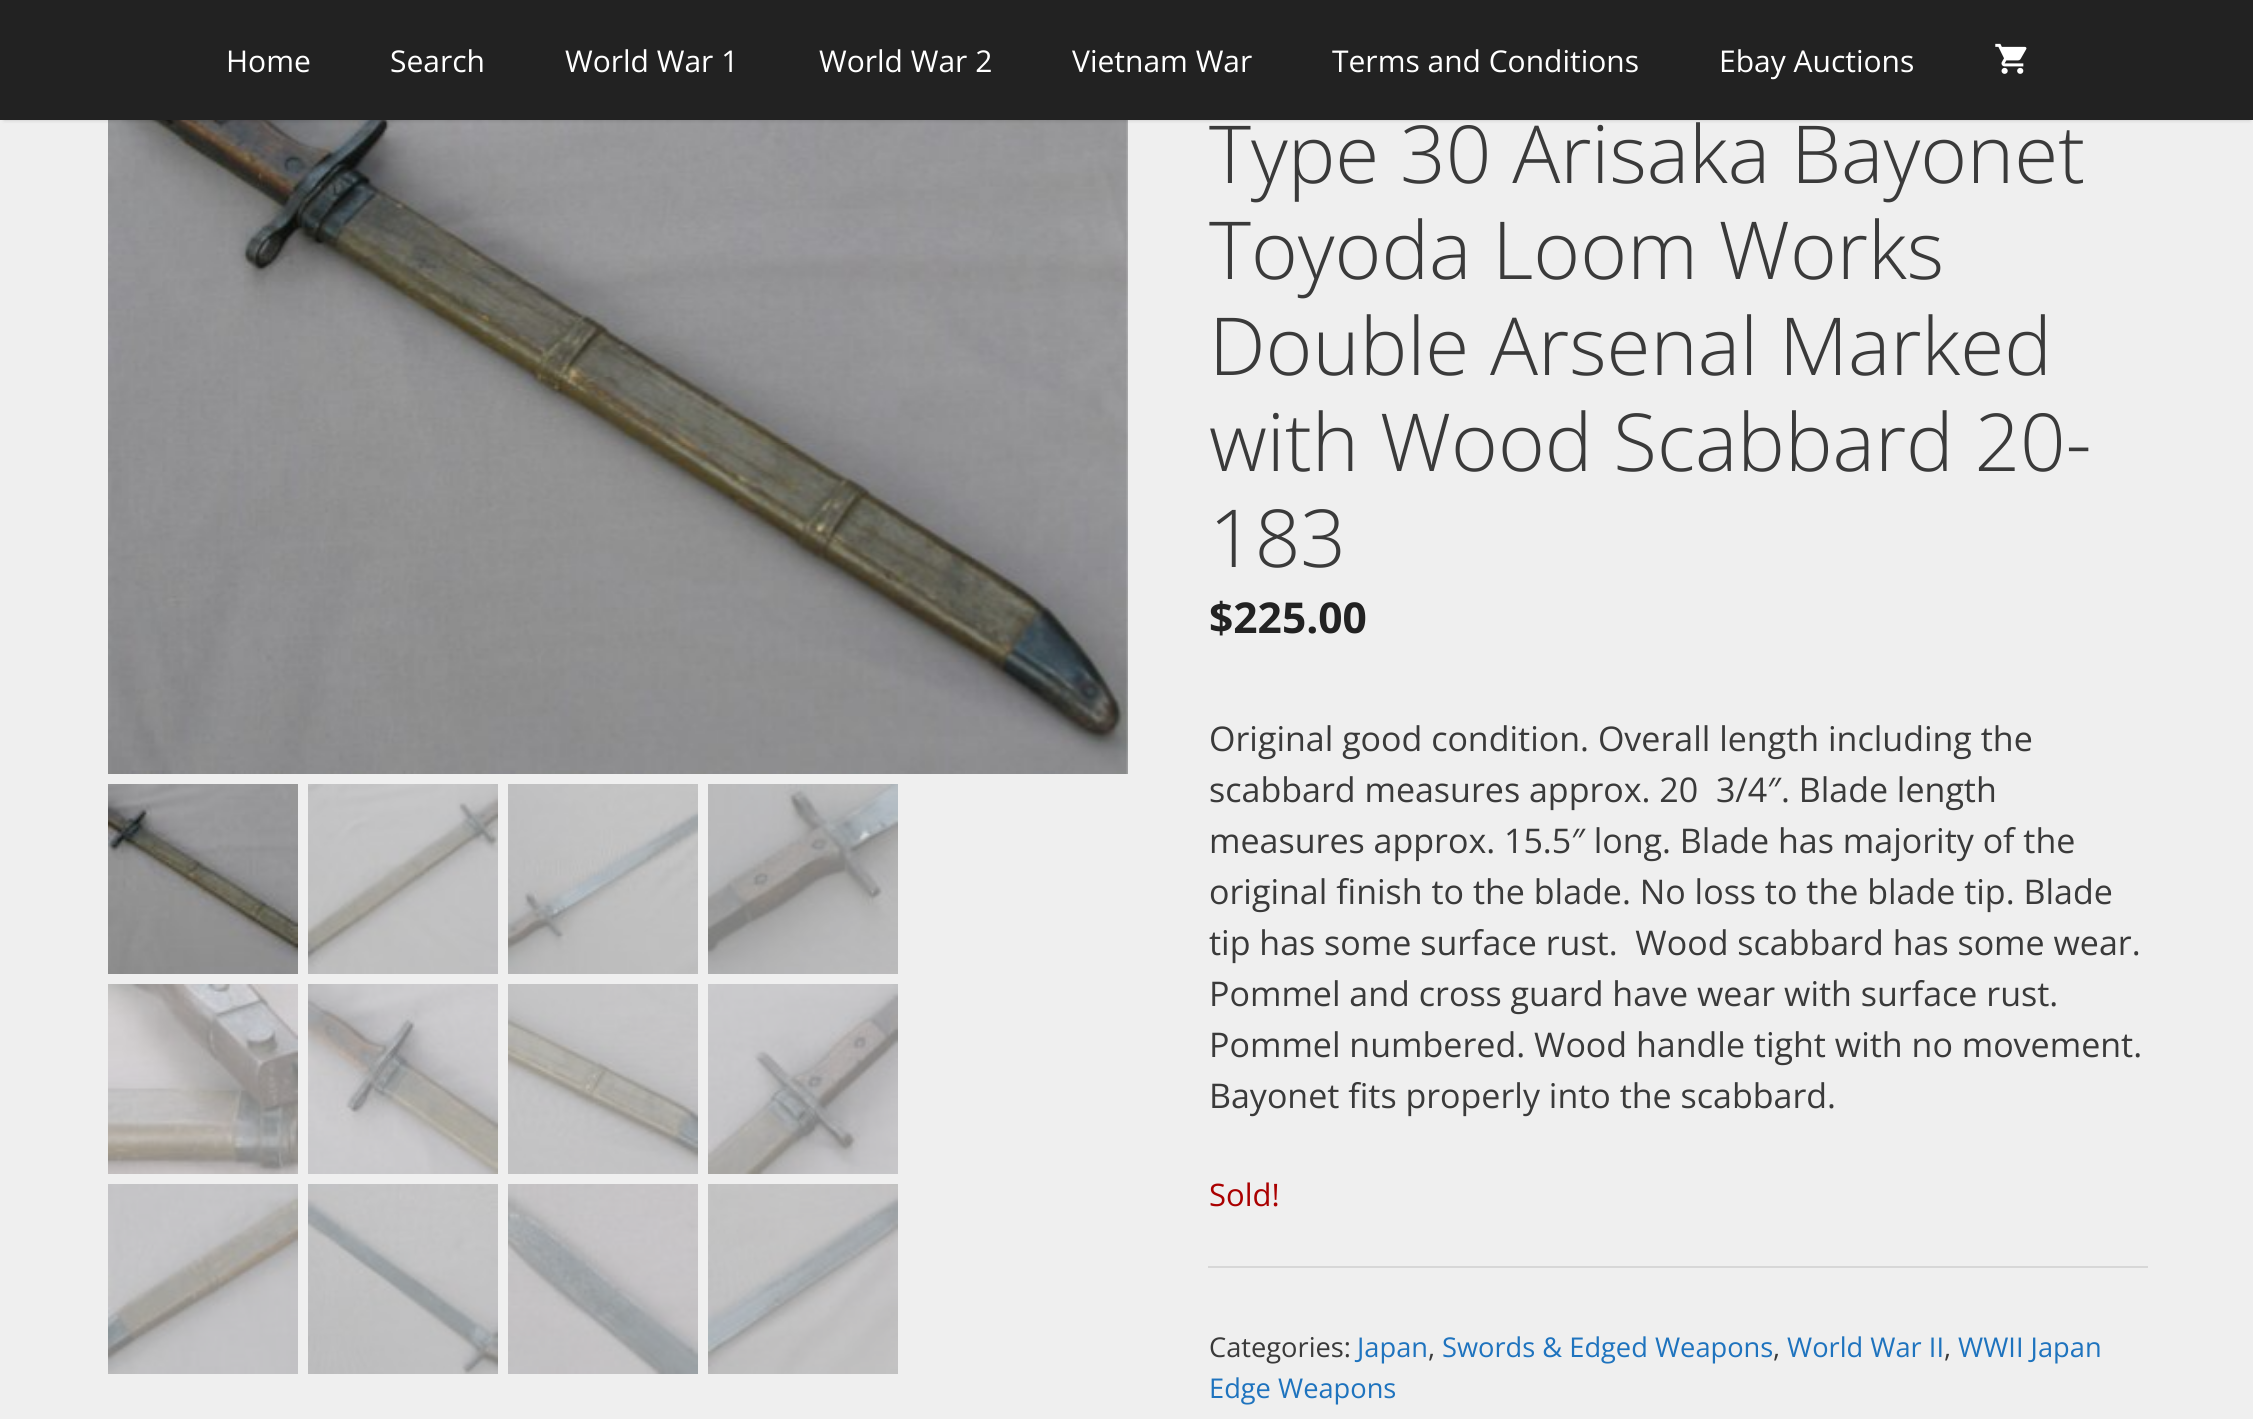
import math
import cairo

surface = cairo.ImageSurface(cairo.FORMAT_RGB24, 2253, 1419)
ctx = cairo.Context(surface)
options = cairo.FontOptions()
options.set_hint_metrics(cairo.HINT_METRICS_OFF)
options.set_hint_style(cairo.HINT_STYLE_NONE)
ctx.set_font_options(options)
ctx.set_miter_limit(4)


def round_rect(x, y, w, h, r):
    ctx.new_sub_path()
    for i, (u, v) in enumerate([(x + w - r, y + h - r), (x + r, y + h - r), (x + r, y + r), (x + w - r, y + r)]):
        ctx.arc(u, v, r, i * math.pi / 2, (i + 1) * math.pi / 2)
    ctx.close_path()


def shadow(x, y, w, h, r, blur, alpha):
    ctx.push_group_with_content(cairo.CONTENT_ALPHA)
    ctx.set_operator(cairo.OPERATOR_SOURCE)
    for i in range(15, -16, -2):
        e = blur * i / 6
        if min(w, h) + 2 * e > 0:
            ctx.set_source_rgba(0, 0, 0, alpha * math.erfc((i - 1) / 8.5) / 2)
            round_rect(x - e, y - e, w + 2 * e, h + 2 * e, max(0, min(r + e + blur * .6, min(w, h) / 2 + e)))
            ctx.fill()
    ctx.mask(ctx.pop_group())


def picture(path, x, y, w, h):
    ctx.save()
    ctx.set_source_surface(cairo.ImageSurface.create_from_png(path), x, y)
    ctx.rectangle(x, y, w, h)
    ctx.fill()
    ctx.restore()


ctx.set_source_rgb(0.937, 0.937, 0.937)
ctx.paint()
picture("img2.png", 108, 120, 1020, 654)
ctx.set_source_rgb(0, 0, 0)
shadow(4, 8, 2246, 112, 0, 2, 0.2)
ctx.set_source_rgb(0.133, 0.133, 0.133)
ctx.rectangle(0, 0, 2253, 120)
ctx.fill()
ctx.select_font_face("Open Sans")
ctx.set_font_size(30)
ctx.set_source_rgb(1, 1, 1)
ctx.move_to(226, 72)
ctx.show_text("Home")
ctx.move_to(390, 72)
ctx.show_text("Search")
ctx.move_to(565, 72)
ctx.show_text("World War 1")
ctx.move_to(819, 72)
ctx.show_text("World War 2")
ctx.move_to(1072, 72)
ctx.show_text("Vietnam War")
ctx.move_to(1332, 72)
ctx.show_text("Terms and Conditions")
ctx.move_to(1719, 72)
ctx.show_text("Ebay Auctions")
picture("img1.png", 1995, 43, 32, 31)
picture("img3.png", 108, 784, 190, 190)
picture("img4.png", 308, 784, 190, 190)
picture("img5.png", 508, 784, 190, 190)
picture("img6.png", 708, 784, 190, 190)
picture("img7.png", 108, 984, 190, 190)
picture("img8.png", 308, 984, 190, 190)
picture("img9.png", 508, 984, 190, 190)
picture("img10.png", 708, 984, 190, 190)
picture("img11.png", 108, 1184, 190, 190)
picture("img12.png", 308, 1184, 190, 190)
picture("img13.png", 508, 1184, 190, 190)
picture("img14.png", 708, 1184, 190, 190)
ctx.select_font_face("Open Sans Light")
ctx.set_font_size(80)
ctx.set_source_rgb(0.227, 0.227, 0.227)
ctx.move_to(1209, 183)
ctx.show_text("Type 30 Arisaka Bayonet")
ctx.move_to(1209, 279)
ctx.show_text("Toyoda Loom Works")
ctx.move_to(1209, 375)
ctx.show_text("Double Arsenal Marked")
ctx.move_to(1209, 471)
ctx.show_text("with Wood Scabbard 20-")
ctx.move_to(1209, 567)
ctx.show_text("183")
ctx.select_font_face("Open Sans", cairo.FONT_SLANT_NORMAL, cairo.FONT_WEIGHT_BOLD)
ctx.set_font_size(42.5)
ctx.set_source_rgb(0.133, 0.133, 0.133)
ctx.move_to(1209, 633)
ctx.show_text("$225.00")
ctx.select_font_face("Open Sans")
ctx.set_font_size(34)
ctx.set_source_rgb(0.227, 0.227, 0.227)
ctx.move_to(1209, 751)
ctx.show_text("Original good condition. Overall length including the")
ctx.move_to(1209, 802)
ctx.show_text("scabbard measures approx. 20  3/4″. Blade length")
ctx.move_to(1209, 853)
ctx.show_text("measures approx. 15.5″ long. Blade has majority of the")
ctx.move_to(1209, 904)
ctx.show_text("original finish to the blade. No loss to the blade tip. Blade")
ctx.move_to(1209, 955)
ctx.show_text("tip has some surface rust.  Wood scabbard has some wear.")
ctx.move_to(1209, 1006)
ctx.show_text("Pommel and cross guard have wear with surface rust.")
ctx.move_to(1209, 1057)
ctx.show_text("Pommel numbered. Wood handle tight with no movement.")
ctx.move_to(1209, 1108)
ctx.show_text("Bayonet fits properly into the scabbard.")
ctx.set_font_size(31)
ctx.set_source_rgb(0.667, 0, 0)
ctx.move_to(1209, 1206)
ctx.show_text("Sold!")
ctx.set_source_rgb(0.843, 0.843, 0.843)
ctx.rectangle(1208, 1266, 940, 2)
ctx.fill()
ctx.set_font_size(27.25)
ctx.set_source_rgb(0.227, 0.227, 0.227)
ctx.move_to(1209, 1357)
ctx.show_text("Categories:")
ctx.set_source_rgb(0.118, 0.451, 0.745)
ctx.move_to(1357, 1357)
ctx.show_text("Japan")
ctx.set_source_rgb(0.227, 0.227, 0.227)
ctx.move_to(1428, 1357)
ctx.show_text(",")
ctx.set_source_rgb(0.118, 0.451, 0.745)
ctx.move_to(1442, 1357)
ctx.show_text("Swords & Edged Weapons")
ctx.set_source_rgb(0.227, 0.227, 0.227)
ctx.move_to(1773, 1357)
ctx.show_text(",")
ctx.set_source_rgb(0.118, 0.451, 0.745)
ctx.move_to(1787, 1357)
ctx.show_text("World War II")
ctx.set_source_rgb(0.227, 0.227, 0.227)
ctx.move_to(1944, 1357)
ctx.show_text(",")
ctx.set_source_rgb(0.118, 0.451, 0.745)
ctx.move_to(1958, 1357)
ctx.show_text("WWII Japan")
ctx.move_to(1209, 1398)
ctx.show_text("Edge Weapons")
surface.write_to_png("page.png")
